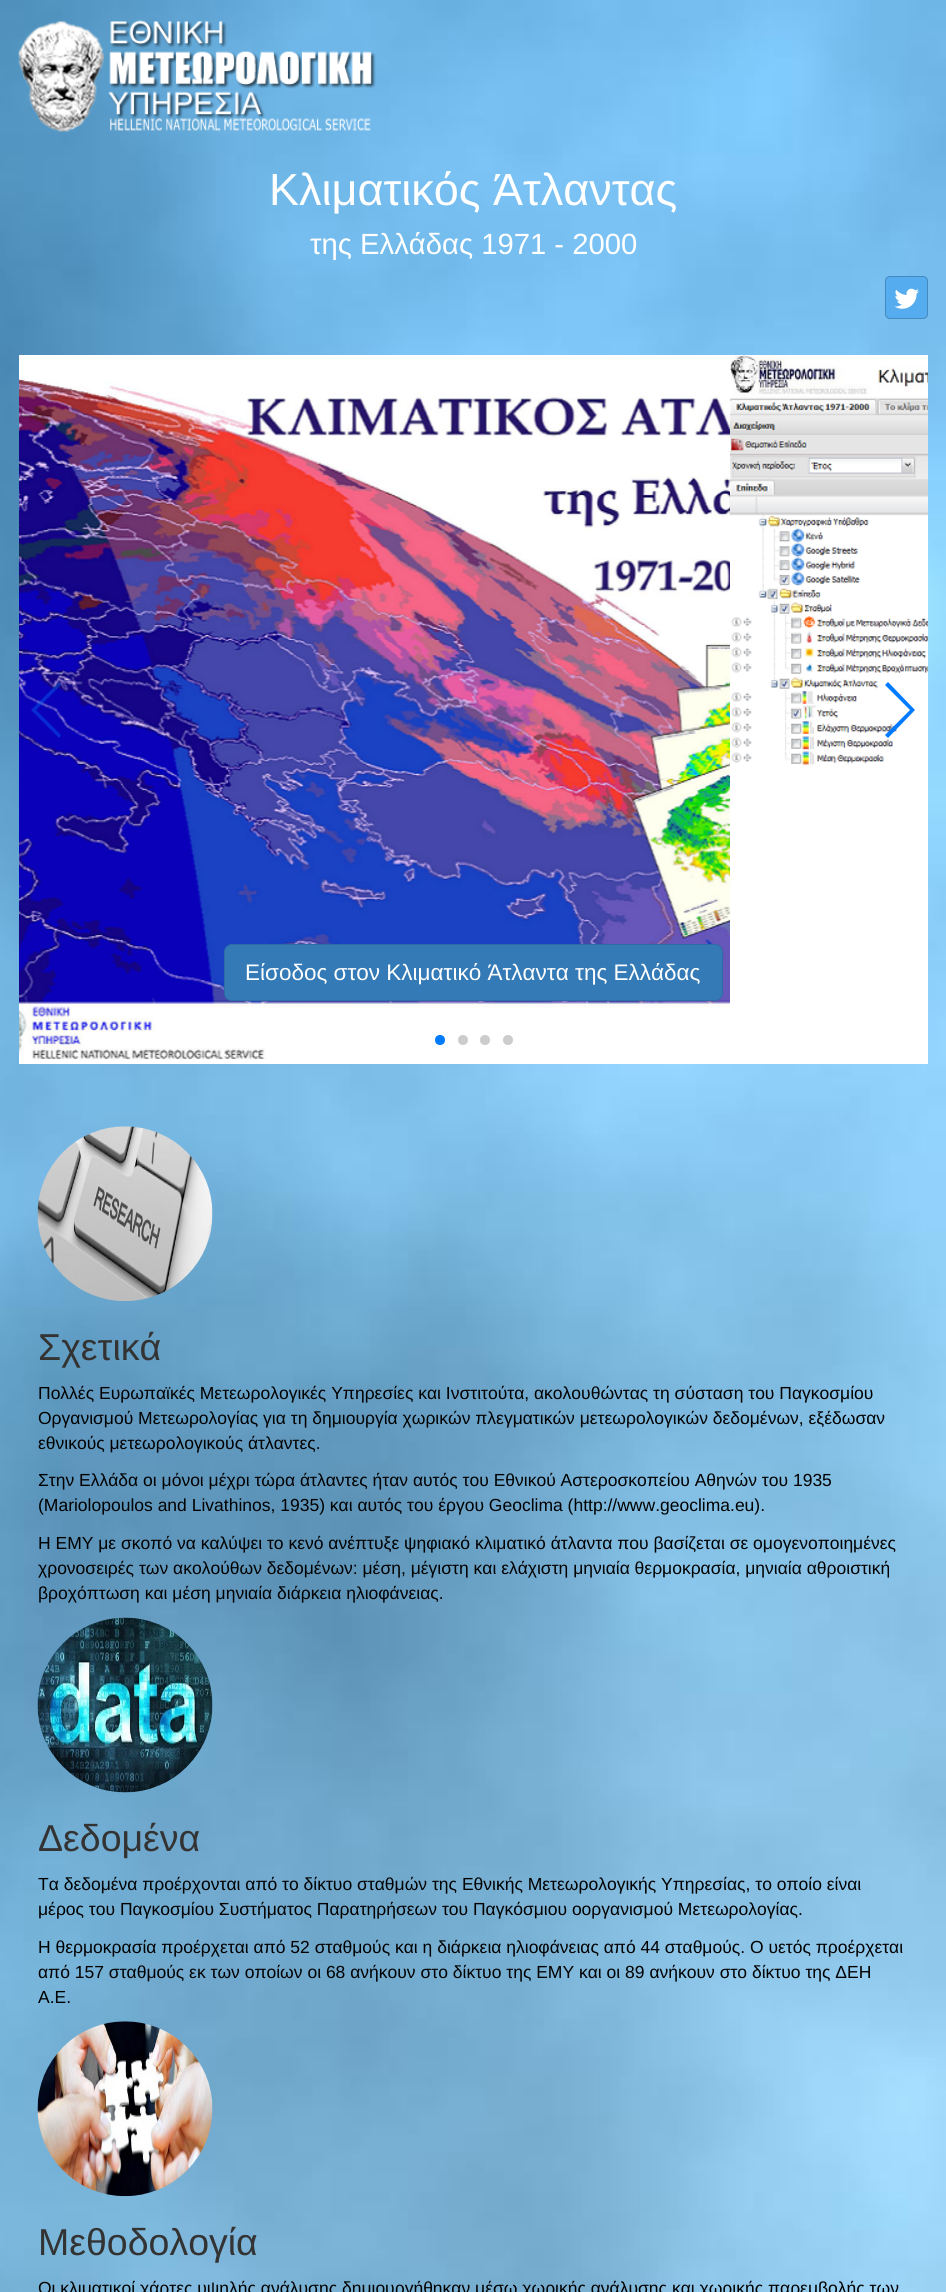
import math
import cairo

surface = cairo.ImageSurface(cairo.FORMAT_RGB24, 946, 2292)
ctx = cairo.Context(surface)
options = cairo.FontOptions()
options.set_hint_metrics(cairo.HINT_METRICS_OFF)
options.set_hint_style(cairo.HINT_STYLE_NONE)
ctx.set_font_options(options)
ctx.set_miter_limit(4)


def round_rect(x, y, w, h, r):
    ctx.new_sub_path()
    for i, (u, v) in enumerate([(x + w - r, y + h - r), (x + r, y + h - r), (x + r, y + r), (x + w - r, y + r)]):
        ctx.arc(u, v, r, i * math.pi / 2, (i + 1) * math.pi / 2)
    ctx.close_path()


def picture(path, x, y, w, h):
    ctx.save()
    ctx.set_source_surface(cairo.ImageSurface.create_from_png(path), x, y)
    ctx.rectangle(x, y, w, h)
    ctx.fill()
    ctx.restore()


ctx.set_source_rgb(1, 1, 1)
ctx.paint()
picture("img1.png", 0, 0, 946, 2292)
picture("img2.png", 18, 20, 358, 112)
ctx.select_font_face("Liberation Sans")
ctx.set_font_size(45)
ctx.set_source_rgb(1, 1, 1)
ctx.move_to(269, 205)
ctx.show_text("Κλιματικός Άτλαντας")
ctx.set_font_size(29.25)
ctx.move_to(310, 254)
ctx.show_text("της Ελλάδας 1971 - 2000")
ctx.set_source_rgb(0.333, 0.675, 0.933)
round_rect(885, 276, 43, 43, 5)
ctx.fill()
round_rect(885.5, 276.5, 42, 42, 4.5)
ctx.set_source_rgba(0, 0, 0, 0.2)
ctx.set_line_width(1)
ctx.stroke()
picture("img3.png", 894, 288, 25, 21)
ctx.set_source_rgb(1, 1, 1)
ctx.rectangle(19, 355, 909, 709)
ctx.fill()
picture("img4.png", 19, 375, 909, 685)
ctx.set_source_rgba(0, 0.478, 1, 0.35)
ctx.new_path()
ctx.move_to(31, 710)
ctx.line_to(59, 682)
ctx.line_to(61, 685)
ctx.line_to(36, 710)
ctx.line_to(61, 735)
ctx.line_to(59, 738)
ctx.close_path()
ctx.fill()
picture("img5.png", 730, 355, 198, 653)
ctx.set_source_rgb(0, 0.478, 1)
ctx.new_path()
ctx.move_to(915, 710)
ctx.line_to(888, 738)
ctx.line_to(885, 735)
ctx.line_to(910, 710)
ctx.line_to(885, 685)
ctx.line_to(888, 682)
ctx.close_path()
ctx.fill()
ctx.set_source_rgb(0.2, 0.478, 0.718)
round_rect(224.5, 944.5, 498, 56, 7.5)
ctx.fill_preserve()
ctx.set_source_rgb(0.18, 0.427, 0.643)
ctx.stroke()
ctx.set_font_size(22.5)
ctx.set_source_rgb(1, 1, 1)
ctx.move_to(245, 980)
ctx.show_text("Είσοδος στον Κλιματικό Άτλαντα της Ελλάδας")
ctx.set_source_rgb(0, 0.478, 1)
ctx.new_path()
ctx.arc(440, 1040, 5, 0, 2 * math.pi)
ctx.fill()
ctx.set_source_rgb(0.8, 0.8, 0.8)
ctx.arc(463, 1040, 5, 0, 2 * math.pi)
ctx.fill()
ctx.arc(485, 1040, 5, 0, 2 * math.pi)
ctx.fill()
ctx.arc(508, 1040, 5, 0, 2 * math.pi)
ctx.fill()
picture("img6.png", 37, 1126, 176, 176)
ctx.set_font_size(37.5)
ctx.set_source_rgb(0.2, 0.2, 0.2)
ctx.move_to(38, 1360)
ctx.show_text("Σχετικά")
ctx.set_font_size(17.5)
ctx.set_source_rgb(0, 0, 0)
ctx.move_to(38, 1399)
ctx.show_text("Πολλές Ευρωπαϊκές Μετεωρολογικές Υπηρεσίες και Ινστιτούτα, ακολουθώντας τη σύσταση του Παγκοσμίου")
ctx.move_to(38, 1424)
ctx.show_text("Οργανισμού Μετεωρολογίας για τη δημιουργία χωρικών πλεγματικών μετεωρολογικών δεδομένων, εξέδωσαν")
ctx.move_to(38, 1449)
ctx.show_text("εθνικούς μετεωρολογικούς άτλαντες.")
ctx.move_to(38, 1486)
ctx.show_text("Στην Ελλάδα οι μόνοι μέχρι τώρα άτλαντες ήταν αυτός του Εθνικού Αστεροσκοπείου Αθηνών του 1935")
ctx.move_to(38, 1511)
ctx.show_text("(Mariolopoulos and Livathinos, 1935) και αυτός του έργου Geoclima (http://www.geoclima.eu).")
ctx.move_to(38, 1549)
ctx.show_text("Η ΕΜΥ με σκοπό να καλύψει το κενό ανέπτυξε ψηφιακό κλιματικό άτλαντα που βασίζεται σε ομογενοποιημένες")
ctx.move_to(38, 1574)
ctx.show_text("χρονοσειρές των ακολούθων δεδομένων: μέση, μέγιστη και ελάχιστη μηνιαία θερμοκρασία, μηνιαία αθροιστική")
ctx.move_to(38, 1599)
ctx.show_text("βροχόπτωση και μέση μηνιαία διάρκεια ηλιοφάνειας.")
picture("img7.png", 37, 1617, 176, 176)
ctx.set_font_size(37.5)
ctx.set_source_rgb(0.2, 0.2, 0.2)
ctx.move_to(38, 1851)
ctx.show_text("Δεδομένα")
ctx.set_font_size(17.5)
ctx.set_source_rgb(0, 0, 0)
ctx.move_to(38, 1890)
ctx.show_text("Τα δεδομένα προέρχονται από το δίκτυο σταθμών της Εθνικής Μετεωρολογικής Υπηρεσίας, το οποίο είναι")
ctx.move_to(38, 1915)
ctx.show_text("μέρος του Παγκοσμίου Συστήματος Παρατηρήσεων του Παγκόσμιου oοργανισμού Μετεωρολογίας.")
ctx.move_to(38, 1953)
ctx.show_text("Η θερμοκρασία προέρχεται από 52 σταθμούς και η διάρκεια ηλιοφάνειας από 44 σταθμούς. Ο υετός προέρχεται")
ctx.move_to(38, 1978)
ctx.show_text("από 157 σταθμούς εκ των οποίων οι 68 ανήκουν στο δίκτυο της ΕΜΥ και οι 89 ανήκουν στο δίκτυο της ΔΕΗ")
ctx.move_to(38, 2003)
ctx.show_text("Α.Ε.")
picture("img8.png", 37, 2021, 176, 176)
ctx.set_font_size(37.5)
ctx.set_source_rgb(0.2, 0.2, 0.2)
ctx.move_to(38, 2255)
ctx.show_text("Μεθοδολογία")
ctx.set_font_size(17.5)
ctx.set_source_rgb(0, 0, 0)
ctx.move_to(38, 2294)
ctx.show_text("Οι κλιματικοί χάρτες υψηλής ανάλυσης δημιουργήθηκαν μέσω χωρικής ανάλυσης και χωρικής παρεμβολής των")
surface.write_to_png("page.png")
